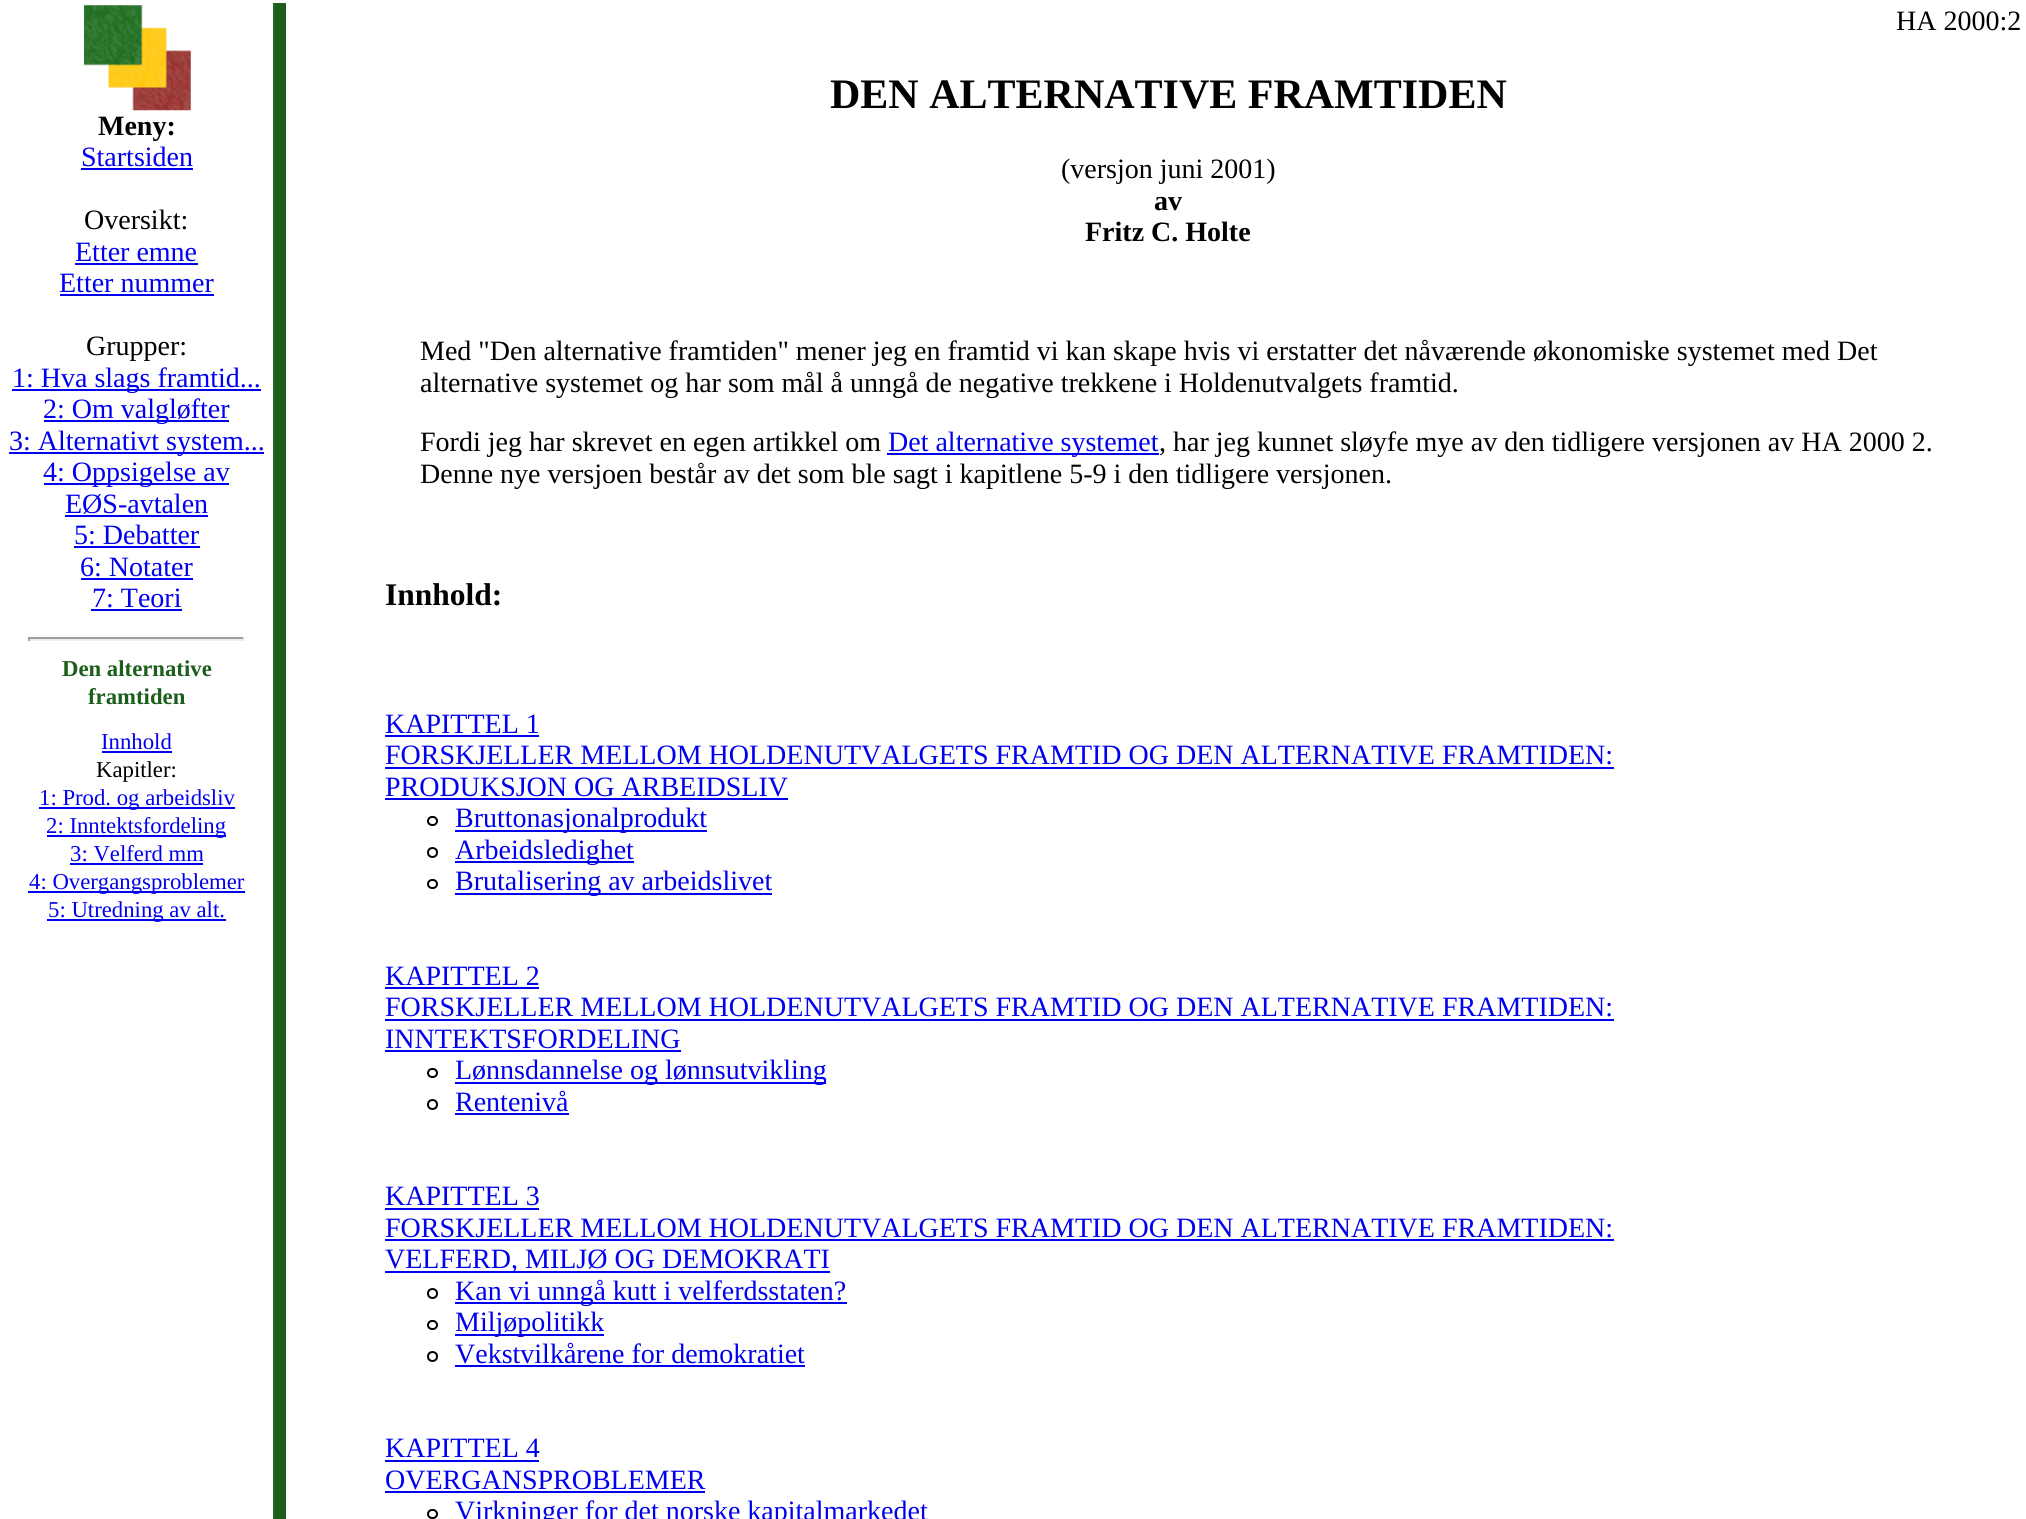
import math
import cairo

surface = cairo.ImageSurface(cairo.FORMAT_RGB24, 2026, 1519)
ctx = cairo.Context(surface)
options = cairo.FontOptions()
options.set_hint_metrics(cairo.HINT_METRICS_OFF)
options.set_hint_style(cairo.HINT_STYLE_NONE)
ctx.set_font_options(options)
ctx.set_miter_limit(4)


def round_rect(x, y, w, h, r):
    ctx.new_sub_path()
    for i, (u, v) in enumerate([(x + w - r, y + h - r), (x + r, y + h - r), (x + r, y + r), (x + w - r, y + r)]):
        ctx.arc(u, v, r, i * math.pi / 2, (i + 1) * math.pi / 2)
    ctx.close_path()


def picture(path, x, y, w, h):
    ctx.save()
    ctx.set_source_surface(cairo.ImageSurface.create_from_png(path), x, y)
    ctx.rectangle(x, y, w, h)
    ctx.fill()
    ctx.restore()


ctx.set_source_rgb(1, 1, 1)
ctx.paint()
picture("img1.png", 84, 5, 107, 106)
ctx.select_font_face("Liberation Serif", cairo.FONT_SLANT_NORMAL, cairo.FONT_WEIGHT_BOLD)
ctx.set_font_size(28)
ctx.set_source_rgb(0, 0, 0)
ctx.move_to(98, 135)
ctx.show_text("Meny:")
ctx.select_font_face("Liberation Serif")
ctx.set_source_rgb(0, 0, 0.933)
ctx.move_to(81, 166)
ctx.show_text("Startsiden")
ctx.rectangle(81, 168, 112, 2)
ctx.fill()
ctx.set_source_rgb(0, 0, 0)
ctx.move_to(84, 229)
ctx.show_text("Oversikt:")
ctx.set_source_rgb(0, 0, 0.933)
ctx.move_to(75, 261)
ctx.show_text("Etter emne")
ctx.rectangle(75, 263, 123, 2)
ctx.fill()
ctx.move_to(59, 292)
ctx.show_text("Etter nummer")
ctx.rectangle(60, 294, 154, 2)
ctx.fill()
ctx.set_source_rgb(0, 0, 0)
ctx.move_to(86, 355)
ctx.show_text("Grupper:")
ctx.set_source_rgb(0, 0, 0.933)
ctx.rectangle(12, 389, 249, 2)
ctx.fill()
ctx.move_to(12, 387)
ctx.show_text("1: Hva slags framtid...")
ctx.rectangle(44, 420, 185, 2)
ctx.fill()
ctx.move_to(43, 418)
ctx.show_text("2: Om valgløfter")
ctx.rectangle(9, 452, 255, 2)
ctx.fill()
ctx.move_to(9, 450)
ctx.show_text("3: Alternativt system...")
ctx.rectangle(44, 483, 185, 2)
ctx.fill()
ctx.move_to(43, 481)
ctx.show_text("4: Oppsigelse av")
ctx.move_to(65, 513)
ctx.show_text("EØS-avtalen")
ctx.rectangle(65, 515, 143, 2)
ctx.fill()
ctx.move_to(74, 544)
ctx.show_text("5: Debatter")
ctx.rectangle(74, 546, 126, 2)
ctx.fill()
ctx.move_to(80, 576)
ctx.show_text("6: Notater")
ctx.rectangle(81, 578, 112, 2)
ctx.fill()
ctx.move_to(92, 607)
ctx.show_text("7: Teori")
ctx.rectangle(91, 609, 91, 2)
ctx.fill()
ctx.set_source_rgb(0.624, 0.624, 0.624)
ctx.rectangle(28, 637, 217, 2)
ctx.fill()
ctx.set_source_rgb(0.933, 0.933, 0.933)
ctx.rectangle(243, 637, 2, 4)
ctx.fill()
ctx.rectangle(28, 639, 217, 2)
ctx.fill()
ctx.set_source_rgb(0.624, 0.624, 0.624)
ctx.rectangle(28, 637, 2, 4)
ctx.fill()
ctx.select_font_face("Liberation Serif", cairo.FONT_SLANT_NORMAL, cairo.FONT_WEIGHT_BOLD)
ctx.set_font_size(22.75)
ctx.set_source_rgb(0.106, 0.373, 0.106)
ctx.move_to(62, 676)
ctx.show_text("Den alternative")
ctx.move_to(88, 704)
ctx.show_text("framtiden")
ctx.select_font_face("Liberation Serif")
ctx.set_source_rgb(0, 0, 0.933)
ctx.move_to(101, 749)
ctx.show_text("Innhold")
ctx.rectangle(102, 751, 70, 2)
ctx.fill()
ctx.set_source_rgb(0, 0, 0)
ctx.move_to(96, 777)
ctx.show_text("Kapitler:")
ctx.set_source_rgb(0, 0, 0.933)
ctx.rectangle(39, 807, 196, 2)
ctx.fill()
ctx.move_to(39, 805)
ctx.show_text("1: Prod. og arbeidsliv")
ctx.rectangle(47, 835, 179, 2)
ctx.fill()
ctx.move_to(46, 833)
ctx.show_text("2: Inntektsfordeling")
ctx.move_to(70, 861)
ctx.show_text("3: Velferd mm")
ctx.rectangle(70, 863, 133, 2)
ctx.fill()
ctx.rectangle(28, 891, 217, 2)
ctx.fill()
ctx.move_to(29, 889)
ctx.show_text("4: Overgangsproblemer")
ctx.rectangle(47, 919, 179, 2)
ctx.fill()
ctx.move_to(48, 917)
ctx.show_text("5: Utredning av alt.")
ctx.set_source_rgb(0.106, 0.373, 0.106)
ctx.rectangle(273, 3, 13, 1516)
ctx.fill()
ctx.set_source_rgb(0.118, 0.427, 0.118)
ctx.rectangle(273, 4, 2, 1515)
ctx.fill()
ctx.set_font_size(28)
ctx.set_source_rgb(0, 0, 0)
ctx.move_to(1896, 30)
ctx.show_text("HA 2000:2")
ctx.select_font_face("Liberation Serif", cairo.FONT_SLANT_NORMAL, cairo.FONT_WEIGHT_BOLD)
ctx.set_font_size(42)
ctx.move_to(830, 108)
ctx.show_text("DEN ALTERNATIVE FRAMTIDEN")
ctx.select_font_face("Liberation Serif")
ctx.set_font_size(28)
ctx.move_to(1061, 178)
ctx.show_text("(versjon juni 2001)")
ctx.select_font_face("Liberation Serif", cairo.FONT_SLANT_NORMAL, cairo.FONT_WEIGHT_BOLD)
ctx.move_to(1154, 210)
ctx.show_text("av")
ctx.move_to(1085, 241)
ctx.show_text("Fritz C. Holte")
ctx.select_font_face("Liberation Serif")
ctx.move_to(420, 360)
ctx.show_text("Med \"Den alternative framtiden\" mener jeg en framtid vi kan skape hvis vi erstatter det nåværende økonomiske systemet med Det")
ctx.move_to(420, 392)
ctx.show_text("alternative systemet og har som mål å unngå de negative trekkene i Holdenutvalgets framtid.")
ctx.move_to(420, 451)
ctx.show_text("Fordi jeg har skrevet en egen artikkel om")
ctx.set_source_rgb(0, 0, 0.933)
ctx.rectangle(887, 453, 272, 2)
ctx.fill()
ctx.move_to(888, 451)
ctx.show_text("Det alternative systemet")
ctx.set_source_rgb(0, 0, 0)
ctx.move_to(1159, 451)
ctx.show_text(", har jeg kunnet sløyfe mye av den tidligere versjonen av HA 2000 2.")
ctx.move_to(420, 483)
ctx.show_text("Denne nye versjoen består av det som ble sagt i kapitlene 5-9 i den tidligere versjonen.")
ctx.select_font_face("Liberation Serif", cairo.FONT_SLANT_NORMAL, cairo.FONT_WEIGHT_BOLD)
ctx.set_font_size(31.5)
ctx.move_to(385, 605)
ctx.show_text("Innhold:")
ctx.select_font_face("Liberation Serif")
ctx.set_font_size(28)
ctx.set_source_rgb(0, 0, 0.933)
ctx.move_to(385, 733)
ctx.show_text("KAPITTEL 1")
ctx.rectangle(385, 735, 154, 2)
ctx.fill()
ctx.move_to(385, 764)
ctx.show_text("FORSKJELLER MELLOM HOLDENUTVALGETS FRAMTID OG DEN ALTERNATIVE FRAMTIDEN:")
ctx.rectangle(385, 767, 1229, 2)
ctx.fill()
ctx.move_to(385, 796)
ctx.show_text("PRODUKSJON OG ARBEIDSLIV")
ctx.rectangle(385, 798, 403, 2)
ctx.fill()
round_rect(428, 817, 9, 8, 4)
ctx.set_source_rgb(0, 0, 0)
ctx.stroke()
ctx.set_source_rgb(0, 0, 0.933)
ctx.rectangle(455, 830, 252, 2)
ctx.fill()
ctx.move_to(455, 827)
ctx.show_text("Bruttonasjonalprodukt")
ctx.new_path()
ctx.arc(432.5, 852.5, 4.5, 0, 2 * math.pi)
ctx.set_source_rgb(0, 0, 0)
ctx.stroke()
ctx.set_source_rgb(0, 0, 0.933)
ctx.rectangle(455, 861, 179, 2)
ctx.fill()
ctx.move_to(455, 859)
ctx.show_text("Arbeidsledighet")
round_rect(428, 880, 9, 8, 4)
ctx.set_source_rgb(0, 0, 0)
ctx.stroke()
ctx.set_source_rgb(0, 0, 0.933)
ctx.rectangle(455, 893, 317, 2)
ctx.fill()
ctx.move_to(455, 890)
ctx.show_text("Brutalisering av arbeidslivet")
ctx.move_to(385, 985)
ctx.show_text("KAPITTEL 2")
ctx.rectangle(385, 987, 154, 2)
ctx.fill()
ctx.move_to(385, 1016)
ctx.show_text("FORSKJELLER MELLOM HOLDENUTVALGETS FRAMTID OG DEN ALTERNATIVE FRAMTIDEN:")
ctx.rectangle(385, 1019, 1229, 2)
ctx.fill()
ctx.move_to(385, 1048)
ctx.show_text("INNTEKTSFORDELING")
ctx.rectangle(385, 1050, 296, 2)
ctx.fill()
round_rect(428, 1069, 9, 8, 4)
ctx.set_source_rgb(0, 0, 0)
ctx.stroke()
ctx.set_source_rgb(0, 0, 0.933)
ctx.rectangle(455, 1082, 371, 2)
ctx.fill()
ctx.move_to(455, 1079)
ctx.show_text("Lønnsdannelse og lønnsutvikling")
ctx.new_path()
ctx.arc(432.5, 1104.5, 4.5, 0, 2 * math.pi)
ctx.set_source_rgb(0, 0, 0)
ctx.stroke()
ctx.set_source_rgb(0, 0, 0.933)
ctx.move_to(455, 1111)
ctx.show_text("Rentenivå")
ctx.rectangle(455, 1113, 114, 2)
ctx.fill()
ctx.move_to(385, 1205)
ctx.show_text("KAPITTEL 3")
ctx.rectangle(385, 1208, 154, 2)
ctx.fill()
ctx.move_to(385, 1237)
ctx.show_text("FORSKJELLER MELLOM HOLDENUTVALGETS FRAMTID OG DEN ALTERNATIVE FRAMTIDEN:")
ctx.rectangle(385, 1239, 1229, 2)
ctx.fill()
ctx.rectangle(385, 1271, 445, 2)
ctx.fill()
ctx.move_to(385, 1268)
ctx.show_text("VELFERD, MILJØ OG DEMOKRATI")
ctx.new_path()
ctx.arc(432.5, 1293.5, 4.5, 0, 2 * math.pi)
ctx.set_source_rgb(0, 0, 0)
ctx.stroke()
ctx.set_source_rgb(0, 0, 0.933)
ctx.rectangle(455, 1302, 392, 2)
ctx.fill()
ctx.move_to(455, 1300)
ctx.show_text("Kan vi unngå kutt i velferdsstaten?")
round_rect(428, 1321, 9, 8, 4)
ctx.set_source_rgb(0, 0, 0)
ctx.stroke()
ctx.set_source_rgb(0, 0, 0.933)
ctx.rectangle(455, 1334, 149, 2)
ctx.fill()
ctx.move_to(455, 1331)
ctx.show_text("Miljøpolitikk")
ctx.new_path()
ctx.arc(432.5, 1356.5, 4.5, 0, 2 * math.pi)
ctx.set_source_rgb(0, 0, 0)
ctx.stroke()
ctx.set_source_rgb(0, 0, 0.933)
ctx.move_to(455, 1363)
ctx.show_text("Vekstvilkårene for demokratiet")
ctx.rectangle(455, 1365, 350, 2)
ctx.fill()
ctx.move_to(385, 1457)
ctx.show_text("KAPITTEL 4")
ctx.rectangle(385, 1460, 154, 2)
ctx.fill()
ctx.move_to(385, 1489)
ctx.show_text("OVERGANSPROBLEMER")
ctx.rectangle(385, 1491, 320, 2)
ctx.fill()
round_rect(428, 1510, 9, 8, 4)
ctx.set_source_rgb(0, 0, 0)
ctx.stroke()
ctx.set_source_rgb(0, 0, 0.933)
ctx.move_to(455, 1520)
ctx.show_text("Virkninger for det norske kapitalmarkedet")
surface.write_to_png("page.png")
